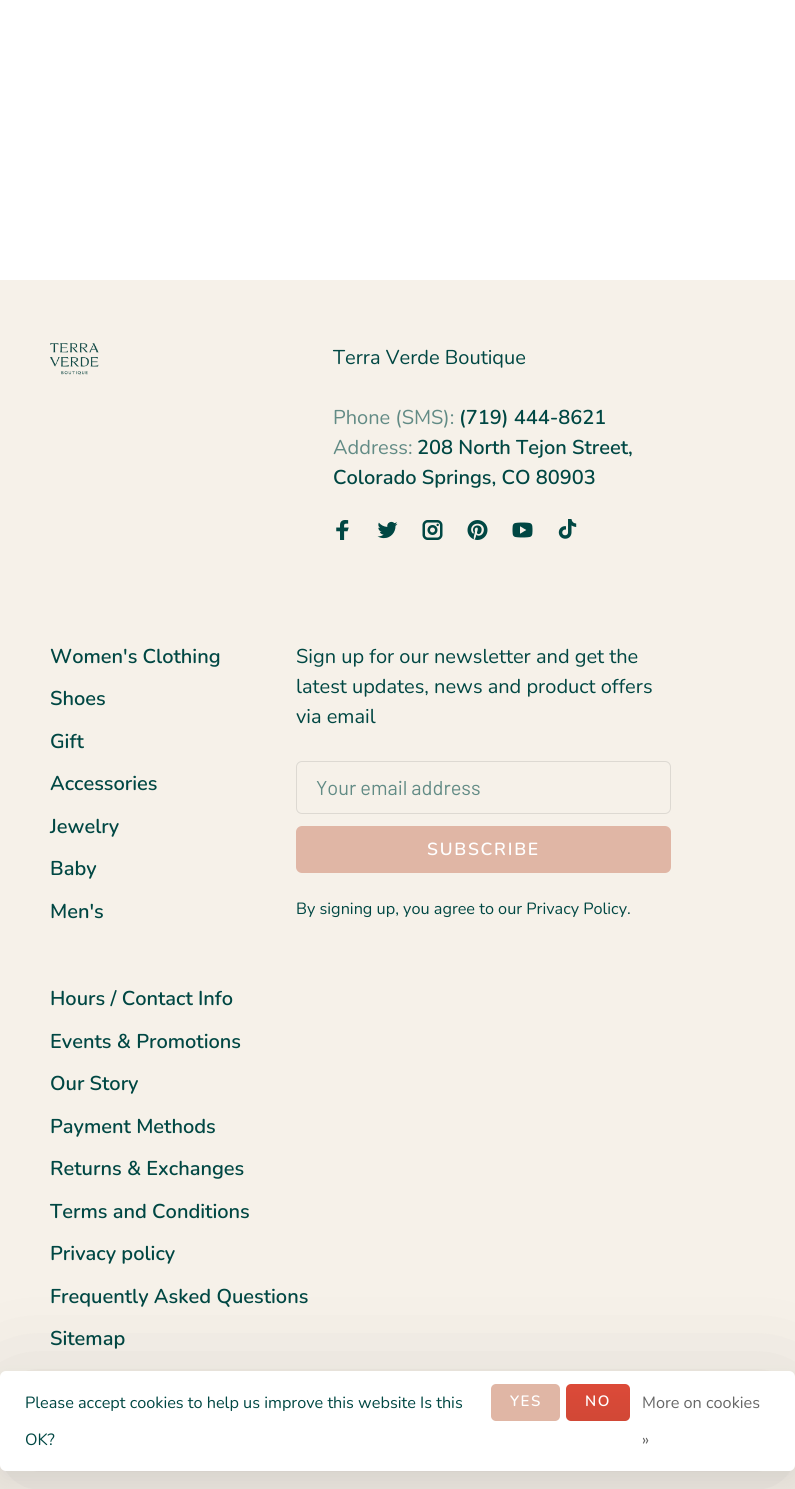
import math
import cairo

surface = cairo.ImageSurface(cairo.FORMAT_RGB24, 795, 1489)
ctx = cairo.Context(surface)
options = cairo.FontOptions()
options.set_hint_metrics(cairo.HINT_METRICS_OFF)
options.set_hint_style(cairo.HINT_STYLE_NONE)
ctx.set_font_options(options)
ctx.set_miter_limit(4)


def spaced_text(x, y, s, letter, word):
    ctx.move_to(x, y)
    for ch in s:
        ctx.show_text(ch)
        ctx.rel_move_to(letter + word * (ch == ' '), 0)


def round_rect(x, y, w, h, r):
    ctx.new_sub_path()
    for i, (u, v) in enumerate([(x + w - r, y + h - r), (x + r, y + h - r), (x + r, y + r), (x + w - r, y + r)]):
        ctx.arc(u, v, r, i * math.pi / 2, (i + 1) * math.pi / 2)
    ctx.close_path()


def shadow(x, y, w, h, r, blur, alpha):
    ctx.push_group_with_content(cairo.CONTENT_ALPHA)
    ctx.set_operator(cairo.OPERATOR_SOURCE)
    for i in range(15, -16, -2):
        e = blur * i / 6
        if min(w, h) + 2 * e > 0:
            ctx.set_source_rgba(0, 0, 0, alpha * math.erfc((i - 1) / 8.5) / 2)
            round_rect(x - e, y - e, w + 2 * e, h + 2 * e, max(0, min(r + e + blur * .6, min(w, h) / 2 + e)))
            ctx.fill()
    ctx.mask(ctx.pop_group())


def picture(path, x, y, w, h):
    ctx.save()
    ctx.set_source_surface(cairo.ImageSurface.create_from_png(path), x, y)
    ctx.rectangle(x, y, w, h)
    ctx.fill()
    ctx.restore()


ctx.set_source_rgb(1, 1, 1)
ctx.paint()
ctx.set_source_rgb(0.961, 0.945, 0.914)
ctx.rectangle(0, 280, 795, 1209)
ctx.fill()
picture("img1.png", 50, 343, 49, 32)
ctx.select_font_face("Nunito")
ctx.set_font_size(20)
ctx.set_source_rgb(0, 0.278, 0.263)
ctx.move_to(333, 364)
ctx.show_text("Terra Verde Boutique")
ctx.set_source_rgb(0.384, 0.545, 0.522)
ctx.move_to(333, 424)
ctx.show_text("Phone (SMS):")
ctx.select_font_face("Nunito SemiBold")
ctx.set_source_rgb(0, 0.278, 0.263)
ctx.move_to(459, 424)
ctx.show_text("(719) 444-8621")
ctx.select_font_face("Nunito")
ctx.set_source_rgb(0.384, 0.545, 0.522)
ctx.move_to(333, 454)
ctx.show_text("Address:")
ctx.select_font_face("Nunito SemiBold")
ctx.set_source_rgb(0, 0.278, 0.263)
ctx.move_to(417, 454)
ctx.show_text("208 North Tejon Street,")
ctx.move_to(333, 484)
ctx.show_text("Colorado Springs, CO 80903")
picture("img2.png", 336, 520, 13, 20)
picture("img3.png", 377, 521, 21, 18)
picture("img4.png", 422, 520, 21, 20)
picture("img5.png", 467, 520, 21, 20)
picture("img6.png", 512, 522, 21, 16)
picture("img7.png", 558, 519, 19, 20)
ctx.move_to(50, 663)
ctx.show_text("Women's Clothing")
ctx.move_to(50, 705)
ctx.show_text("Shoes")
ctx.move_to(50, 748)
ctx.show_text("Gift")
ctx.move_to(50, 790)
ctx.show_text("Accessories")
ctx.move_to(50, 833)
ctx.show_text("Jewelry")
ctx.move_to(50, 875)
ctx.show_text("Baby")
ctx.move_to(50, 918)
ctx.show_text("Men's")
ctx.select_font_face("Nunito")
ctx.move_to(296, 663)
ctx.show_text("Sign up for our newsletter and get the")
ctx.move_to(296, 693)
ctx.show_text("latest updates, news and product offers")
ctx.move_to(296, 723)
ctx.show_text("via email")
round_rect(296.5, 761.5, 374, 52, 5.5)
ctx.set_source_rgb(0.867, 0.851, 0.824)
ctx.set_line_width(1)
ctx.stroke()
ctx.select_font_face("Barlow")
ctx.set_source_rgb(0.384, 0.545, 0.522)
ctx.move_to(316, 795)
ctx.show_text("Your email address")
ctx.set_source_rgb(0.878, 0.714, 0.647)
round_rect(296, 826, 375, 47, 6)
ctx.fill()
ctx.select_font_face("Nunito SemiBold")
ctx.set_font_size(17.5)
ctx.set_source_rgb(1, 1, 1)
spaced_text(427, 855, "SUBSCRIBE", 1.75, 0)
ctx.select_font_face("Nunito")
ctx.set_font_size(16.25)
ctx.set_source_rgb(0, 0.278, 0.263)
ctx.move_to(296, 914)
ctx.show_text("By signing up, you agree to our Privacy Policy.")
ctx.select_font_face("Nunito SemiBold")
ctx.set_font_size(20)
ctx.move_to(50, 1005)
ctx.show_text("Hours / Contact Info")
ctx.move_to(50, 1048)
ctx.show_text("Events & Promotions")
ctx.move_to(50, 1090)
ctx.show_text("Our Story")
ctx.move_to(50, 1133)
ctx.show_text("Payment Methods")
ctx.move_to(50, 1175)
ctx.show_text("Returns & Exchanges")
ctx.move_to(50, 1218)
ctx.show_text("Terms and Conditions")
ctx.move_to(50, 1260)
ctx.show_text("Privacy policy")
ctx.move_to(50, 1303)
ctx.show_text("Frequently Asked Questions")
ctx.move_to(50, 1345)
ctx.show_text("Sitemap")
ctx.set_source_rgb(0, 0, 0)
shadow(0, 1379, 795, 100, 6, 9.5, 0.05)
shadow(8, 1396, 780, 85, 0, 54, 0.15)
ctx.set_source_rgb(1, 1, 1)
round_rect(0, 1371, 795, 100, 6)
ctx.fill()
ctx.select_font_face("Nunito")
ctx.set_font_size(16.25)
ctx.set_source_rgb(0, 0.278, 0.263)
ctx.move_to(25, 1408)
ctx.show_text("Please accept cookies to help us improve this website Is this")
ctx.set_source_rgb(0.878, 0.714, 0.647)
round_rect(491, 1384, 69, 37, 5)
ctx.fill()
ctx.select_font_face("Nunito SemiBold")
ctx.set_font_size(15)
ctx.set_source_rgb(1, 1, 1)
spaced_text(510, 1406, "YES", 1.5, 0)
gradient = cairo.LinearGradient(598, 1384, 598, 1421)
gradient.add_color_stop_rgba(0, 0.863, 0.29, 0.22, 1)
gradient.add_color_stop_rgba(1, 0.82, 0.282, 0.212, 1)
ctx.set_source(gradient)
round_rect(566, 1384, 64, 37, 5)
ctx.fill()
ctx.set_source_rgb(1, 1, 1)
spaced_text(585, 1406, "NO", 1.5, 0)
ctx.select_font_face("Nunito")
ctx.set_font_size(16.25)
ctx.set_source_rgb(0.4, 0.4, 0.4)
ctx.move_to(642, 1408)
ctx.show_text("More on cookies")
ctx.move_to(642, 1445)
ctx.show_text("»")
ctx.set_source_rgb(0, 0.278, 0.263)
ctx.move_to(25, 1445)
ctx.show_text("OK?")
surface.write_to_png("page.png")
